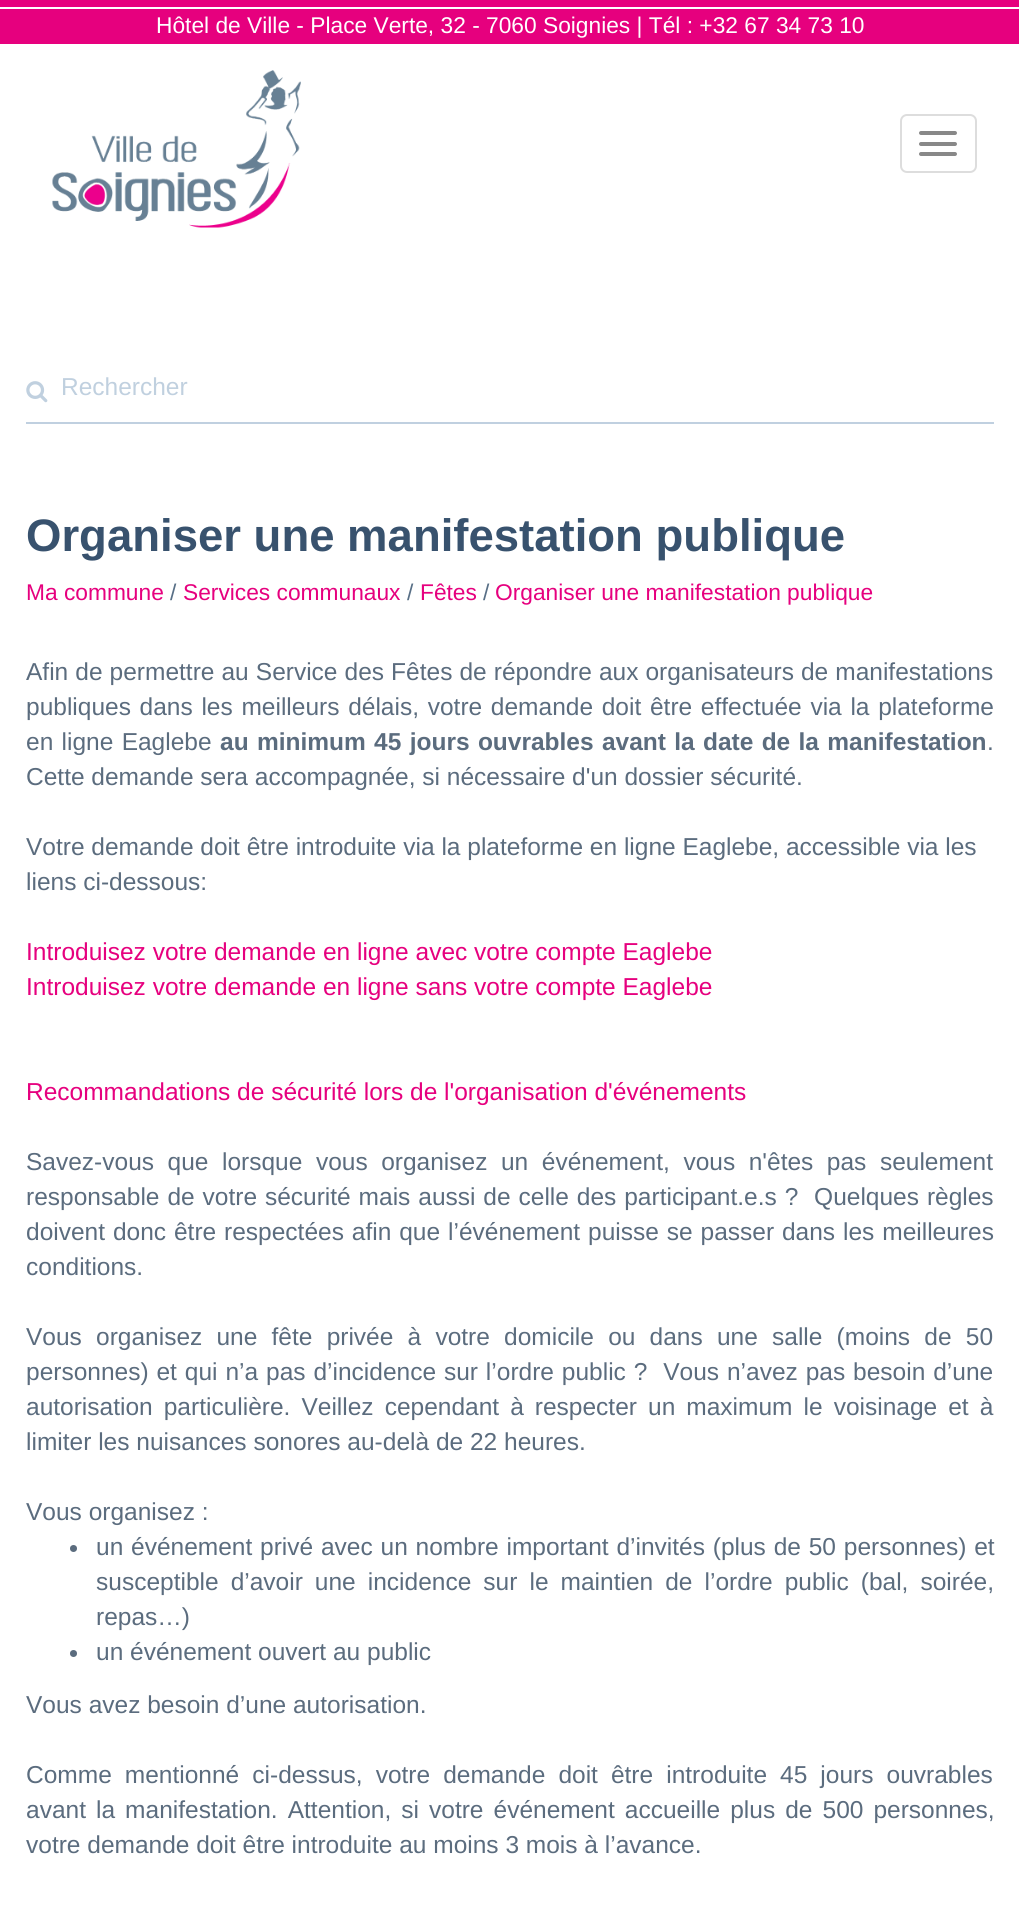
import math
import cairo

surface = cairo.ImageSurface(cairo.FORMAT_RGB24, 1019, 1917)
ctx = cairo.Context(surface)
options = cairo.FontOptions()
options.set_hint_metrics(cairo.HINT_METRICS_OFF)
options.set_hint_style(cairo.HINT_STYLE_NONE)
ctx.set_font_options(options)
ctx.set_miter_limit(4)


def spaced_text(x, y, s, letter, word):
    ctx.move_to(x, y)
    for ch in s:
        ctx.show_text(ch)
        ctx.rel_move_to(letter + word * (ch == ' '), 0)


def round_rect(x, y, w, h, r):
    ctx.new_sub_path()
    for i, (u, v) in enumerate([(x + w - r, y + h - r), (x + r, y + h - r), (x + r, y + r), (x + w - r, y + r)]):
        ctx.arc(u, v, r, i * math.pi / 2, (i + 1) * math.pi / 2)
    ctx.close_path()


def picture(path, x, y, w, h):
    ctx.save()
    ctx.set_source_surface(cairo.ImageSurface.create_from_png(path), x, y)
    ctx.rectangle(x, y, w, h)
    ctx.fill()
    ctx.restore()


ctx.set_source_rgb(1, 1, 1)
ctx.paint()
ctx.set_source_rgb(0.902, 0, 0.494)
ctx.rectangle(0, 0, 1019, 7)
ctx.fill()
ctx.rectangle(0, 9, 1019, 35)
ctx.fill()
ctx.select_font_face("Liberation Sans")
ctx.set_font_size(22.75)
ctx.set_source_rgb(1, 1, 1)
ctx.move_to(156, 33)
ctx.show_text("Hôtel de Ville - Place Verte, 32 - 7060 Soignies | Tél : +32 67 34 73 10")
picture("img1.png", 52, 70, 249, 158)
round_rect(901, 115, 75, 57, 6)
ctx.set_source_rgb(0.867, 0.867, 0.867)
ctx.stroke()
ctx.set_source_rgb(0.533, 0.533, 0.533)
round_rect(919, 131, 38, 4, 2)
ctx.fill()
round_rect(919, 142, 38, 4, 2)
ctx.fill()
round_rect(919, 152, 38, 4, 2)
ctx.fill()
ctx.set_source_rgb(0.753, 0.816, 0.878)
ctx.rectangle(26, 422, 968, 2)
ctx.fill()
picture("img2.png", 26, 381, 22, 22)
ctx.set_font_size(24.5)
ctx.set_source_rgb(0.753, 0.816, 0.875)
ctx.move_to(61, 395)
ctx.show_text("Rechercher")
ctx.select_font_face("Liberation Sans", cairo.FONT_SLANT_NORMAL, cairo.FONT_WEIGHT_BOLD)
ctx.set_font_size(45.5)
ctx.set_source_rgb(0.22, 0.322, 0.431)
ctx.move_to(26, 551)
ctx.show_text("Organiser une manifestation publique")
ctx.select_font_face("Liberation Sans")
ctx.set_font_size(22.75)
ctx.set_source_rgb(0.902, 0, 0.494)
ctx.move_to(26, 600)
ctx.show_text("Ma commune")
ctx.set_source_rgb(0.345, 0.435, 0.525)
ctx.move_to(170, 600)
ctx.show_text("/")
ctx.set_source_rgb(0.902, 0, 0.494)
ctx.move_to(183, 600)
ctx.show_text("Services communaux")
ctx.set_source_rgb(0.345, 0.435, 0.525)
ctx.move_to(407, 600)
ctx.show_text("/")
ctx.set_source_rgb(0.902, 0, 0.494)
ctx.move_to(420, 600)
ctx.show_text("Fêtes")
ctx.set_source_rgb(0.345, 0.435, 0.525)
ctx.move_to(483, 600)
ctx.show_text("/")
ctx.set_source_rgb(0.902, 0, 0.494)
ctx.move_to(495, 600)
ctx.show_text("Organiser une manifestation publique")
ctx.set_font_size(24.5)
ctx.set_source_rgb(0.357, 0.424, 0.494)
spaced_text(26, 680, "Afin de permettre au Service des Fêtes de répondre aux organisateurs de manifestations", 0, 0.25)
spaced_text(26, 715, "publiques dans les meilleurs délais, votre demande doit être effectuée via la plateforme", 0, 1.9)
spaced_text(26, 750, "en ligne Eaglebe", 0, 1.5)
ctx.select_font_face("Liberation Sans", cairo.FONT_SLANT_NORMAL, cairo.FONT_WEIGHT_BOLD)
spaced_text(220, 750, "au minimum 45 jours ouvrables avant la date de la manifestation", 0, 1.5)
ctx.select_font_face("Liberation Sans")
ctx.move_to(987, 750)
ctx.show_text(".")
ctx.move_to(26, 785)
ctx.show_text("Cette demande sera accompagnée, si nécessaire d'un dossier sécurité.")
ctx.move_to(26, 855)
ctx.show_text("Votre demande doit être introduite via la plateforme en ligne Eaglebe, accessible via les")
ctx.move_to(26, 890)
ctx.show_text("liens ci-dessous:")
ctx.set_source_rgb(0.902, 0, 0.494)
ctx.move_to(26, 960)
ctx.show_text("Introduisez votre demande en ligne avec votre compte Eaglebe")
ctx.move_to(26, 995)
ctx.show_text("Introduisez votre demande en ligne sans votre compte Eaglebe")
ctx.move_to(26, 1100)
ctx.show_text("Recommandations de sécurité lors de l'organisation d'événements")
ctx.set_source_rgb(0.357, 0.424, 0.494)
spaced_text(26, 1170, "Savez-vous que lorsque vous organisez un événement, vous n'êtes pas seulement", 0, 6.75)
spaced_text(26, 1205, "responsable de votre sécurité mais aussi de celle des participant.e.s ?  Quelques règles", 0, 1.1)
spaced_text(26, 1240, "doivent donc être respectées afin que l’événement puisse se passer dans les meilleures", 0, 1.1)
ctx.move_to(26, 1275)
ctx.show_text("conditions.")
spaced_text(26, 1345, "Vous organisez une fête privée à votre domicile ou dans une salle (moins de 50", 0, 7.4)
spaced_text(26, 1380, "personnes) et qui n’a pas d’incidence sur l’ordre public ?  Vous n’avez pas besoin d’une", 0, 1.1)
spaced_text(26, 1415, "autorisation particulière. Veillez cependant à respecter un maximum le voisinage et à", 0, 4.25)
ctx.move_to(26, 1450)
ctx.show_text("limiter les nuisances sonores au-delà de 22 heures.")
ctx.move_to(26, 1520)
ctx.show_text("Vous organisez :")
ctx.new_path()
ctx.arc(73.5, 1548.5, 3.5, 0, 2 * math.pi)
ctx.fill()
spaced_text(96, 1555, "un événement privé avec un nombre important d’invités (plus de 50 personnes) et", 0, 1)
spaced_text(96, 1590, "susceptible d’avoir une incidence sur le maintien de l’ordre public (bal, soirée,", 0, 5.25)
ctx.move_to(96, 1625)
ctx.show_text("repas…)")
ctx.new_path()
ctx.arc(73.5, 1653.5, 3.5, 0, 2 * math.pi)
ctx.fill()
ctx.move_to(96, 1660)
ctx.show_text("un événement ouvert au public")
ctx.move_to(26, 1713)
ctx.show_text("Vous avez besoin d’une autorisation.")
spaced_text(26, 1783, "Comme mentionné ci-dessus, votre demande doit être introduite 45 jours ouvrables", 0, 6.25)
spaced_text(26, 1818, "avant la manifestation. Attention, si votre événement accueille plus de 500 personnes,", 0, 3.25)
ctx.move_to(26, 1853)
ctx.show_text("votre demande doit être introduite au moins 3 mois à l’avance.")
surface.write_to_png("page.png")
